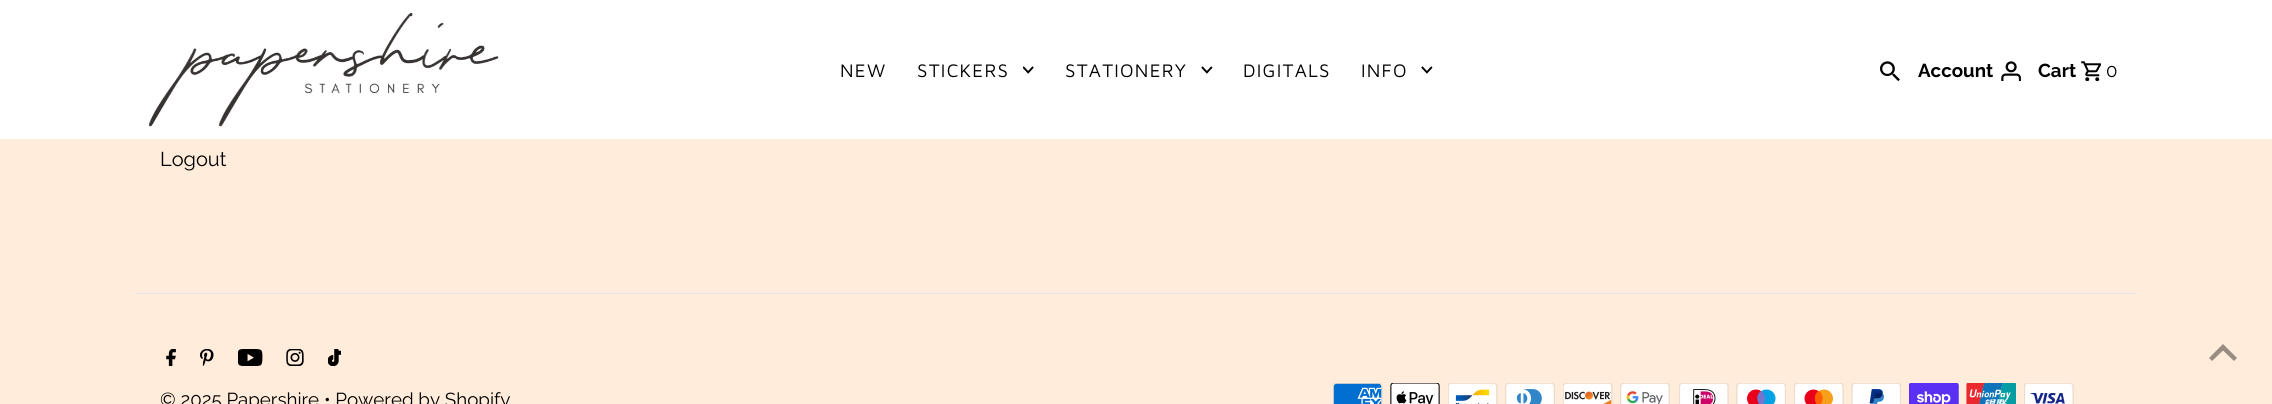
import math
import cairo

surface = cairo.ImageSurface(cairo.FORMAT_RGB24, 2272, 404)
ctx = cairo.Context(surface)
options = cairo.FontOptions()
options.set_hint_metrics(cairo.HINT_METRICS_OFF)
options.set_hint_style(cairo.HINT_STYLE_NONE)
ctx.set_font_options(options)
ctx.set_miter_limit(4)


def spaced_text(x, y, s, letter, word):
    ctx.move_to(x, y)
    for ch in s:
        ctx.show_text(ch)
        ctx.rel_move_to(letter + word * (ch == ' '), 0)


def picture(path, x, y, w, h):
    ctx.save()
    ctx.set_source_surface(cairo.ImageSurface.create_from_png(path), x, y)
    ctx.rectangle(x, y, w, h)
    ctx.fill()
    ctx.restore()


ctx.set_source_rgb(1, 0.922, 0.855)
ctx.paint()
ctx.set_source_rgb(1, 1, 1)
ctx.rectangle(0, 0, 2272, 139)
ctx.fill()
picture("img1.png", 149, 13, 350, 114)
ctx.select_font_face("Maven Pro")
ctx.set_font_size(18.75)
ctx.set_source_rgb(0, 0, 0)
spaced_text(840, 77, "NEW", 1.25, 0)
spaced_text(917, 77, "STICKERS", 1.25, 0)
picture("img2.png", 1023, 66, 11, 8)
spaced_text(1065, 77, "STATIONERY", 1.25, 0)
picture("img3.png", 1201, 66, 12, 8)
spaced_text(1243, 77, "DIGITALS", 1.25, 0)
spaced_text(1361, 77, "INFO", 1.25, 0)
picture("img3.png", 1421, 66, 12, 8)
picture("img4.png", 1880, 61, 20, 20)
ctx.select_font_face("Raleway", cairo.FONT_SLANT_NORMAL, cairo.FONT_WEIGHT_BOLD)
ctx.move_to(1918, 77)
ctx.show_text("Account")
picture("img5.png", 2001, 61, 20, 20)
ctx.move_to(2038, 77)
ctx.show_text("Cart")
picture("img6.png", 2081, 61, 20, 20)
ctx.select_font_face("Raleway")
ctx.move_to(2106, 77)
ctx.show_text("0")
ctx.set_font_size(20)
ctx.move_to(160, 166)
ctx.show_text("Logout")
ctx.set_source_rgb(0.898, 0.898, 0.898)
ctx.rectangle(136, 293, 2000, 1)
ctx.fill()
picture("img7.png", 166, 349, 10, 17)
picture("img8.png", 200, 349, 14, 17)
picture("img9.png", 238, 349, 25, 17)
picture("img10.png", 286, 349, 18, 17)
picture("img11.png", 328, 349, 13, 17)
ctx.set_font_size(18.75)
ctx.set_source_rgb(0, 0, 0)
ctx.move_to(160, 406)
ctx.show_text("© 2025 Papershire • Powered by Shopify")
picture("img12.png", 1333, 383, 50, 21)
picture("img13.png", 1390, 383, 50, 21)
picture("img14.png", 1448, 383, 50, 21)
picture("img15.png", 1505, 383, 50, 21)
picture("img16.png", 1563, 383, 50, 21)
picture("img17.png", 1620, 383, 50, 21)
picture("img18.png", 1679, 383, 50, 21)
picture("img19.png", 1736, 383, 50, 21)
picture("img20.png", 1794, 383, 50, 21)
picture("img21.png", 1851, 383, 50, 21)
picture("img22.png", 1909, 383, 50, 21)
picture("img23.png", 1966, 383, 50, 21)
picture("img24.png", 2024, 383, 50, 21)
ctx.set_source_rgb(0.6, 0.553, 0.514)
ctx.new_path()
ctx.move_to(2223, 344)
ctx.line_to(2209, 358)
ctx.line_to(2212, 361)
ctx.line_to(2223, 350.5)
ctx.line_to(2234, 361)
ctx.line_to(2237, 358)
ctx.close_path()
ctx.fill()
surface.write_to_png("page.png")
